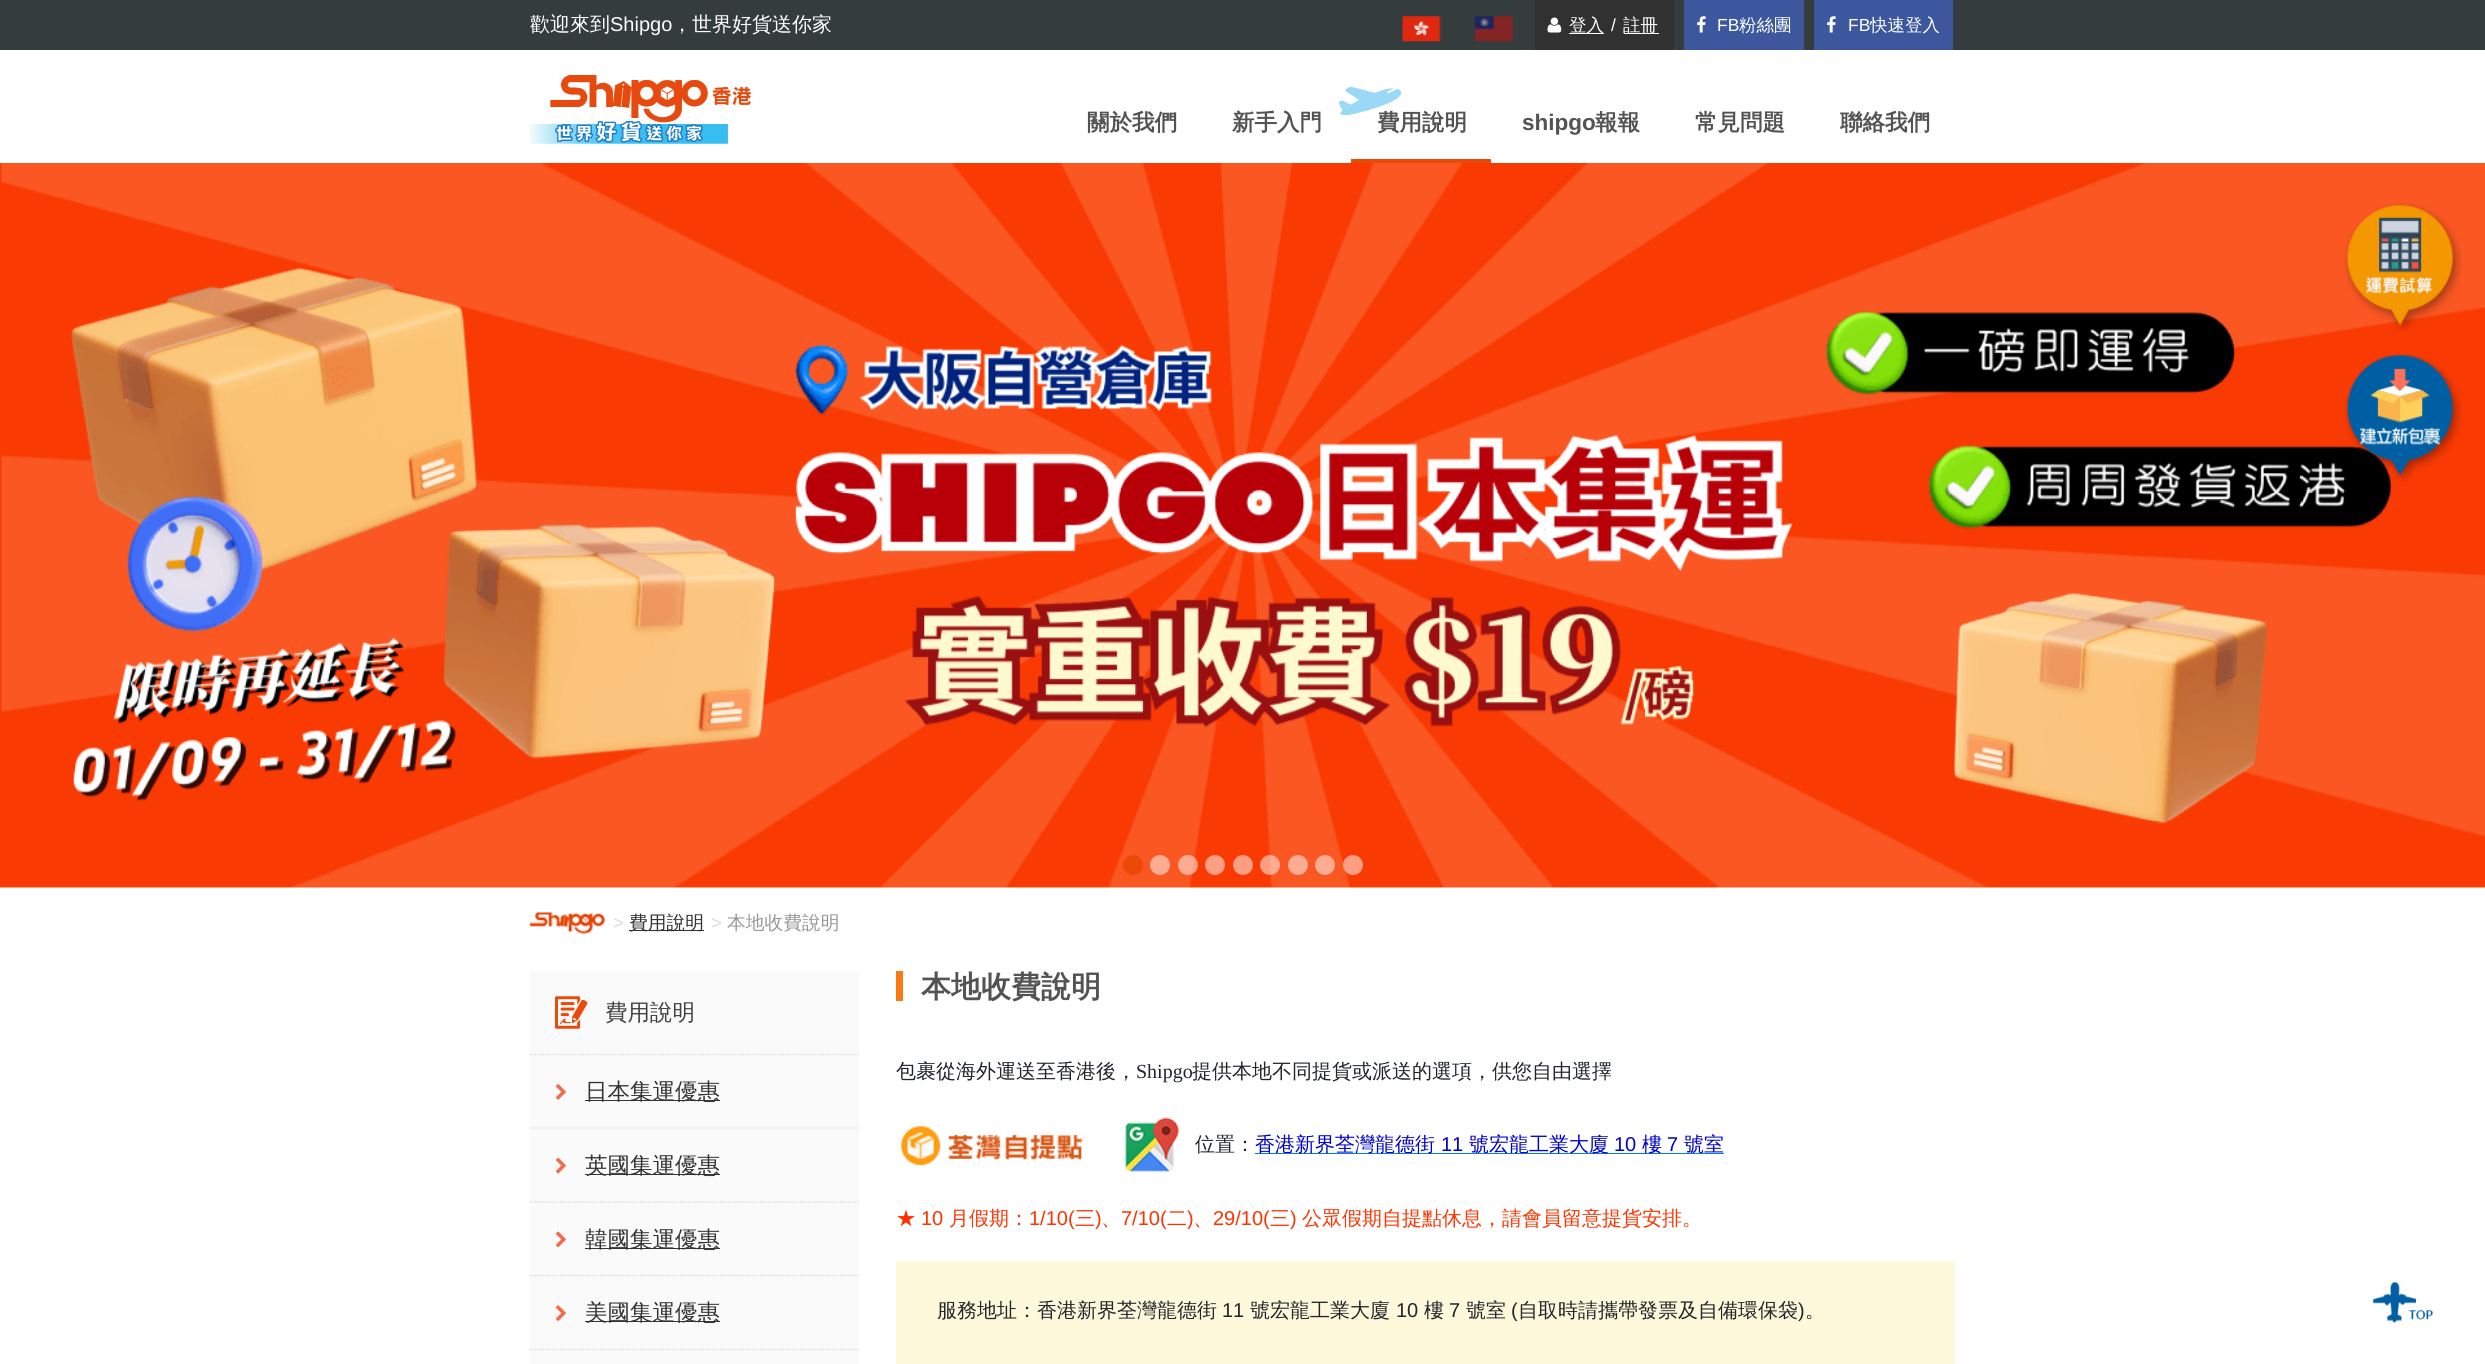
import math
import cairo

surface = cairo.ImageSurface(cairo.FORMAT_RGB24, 2485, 1364)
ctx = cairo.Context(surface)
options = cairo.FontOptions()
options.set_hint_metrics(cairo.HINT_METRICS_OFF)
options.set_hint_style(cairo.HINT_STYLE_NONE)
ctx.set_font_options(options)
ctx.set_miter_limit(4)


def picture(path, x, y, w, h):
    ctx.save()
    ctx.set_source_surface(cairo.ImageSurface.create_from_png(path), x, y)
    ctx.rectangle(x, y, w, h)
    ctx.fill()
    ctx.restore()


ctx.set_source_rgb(1, 1, 1)
ctx.paint()
ctx.set_source_rgb(0.204, 0.235, 0.239)
ctx.rectangle(0, 0, 2485, 50)
ctx.fill()
ctx.select_font_face("WenQuanYi Zen Hei Medium")
ctx.set_font_size(20)
ctx.set_source_rgb(1, 1, 1)
ctx.move_to(530, 31)
ctx.show_text("歡迎來到")
ctx.select_font_face("Liberation Sans")
ctx.move_to(610, 31)
ctx.show_text("Shipgo")
ctx.select_font_face("WenQuanYi Zen Hei Medium")
ctx.move_to(672, 31)
ctx.show_text("，世界好貨送你家")
picture("img1.png", 1402, 16, 39, 26)
picture("img2.png", 1474, 16, 39, 26)
ctx.set_source_rgb(0.192, 0.192, 0.192)
ctx.rectangle(1535, 0, 139, 50)
ctx.fill()
picture("img3.png", 1547, 17, 15, 16)
ctx.set_source_rgb(1, 1, 1)
ctx.rectangle(1569, 33, 35, 1)
ctx.fill()
ctx.set_font_size(17.5)
ctx.move_to(1569, 31)
ctx.show_text("登入")
ctx.select_font_face("Liberation Sans")
ctx.move_to(1611, 31)
ctx.show_text("/")
ctx.rectangle(1624, 33, 35, 1)
ctx.fill()
ctx.select_font_face("WenQuanYi Zen Hei Medium")
ctx.move_to(1623, 31)
ctx.show_text("註冊")
ctx.set_source_rgb(0.235, 0.341, 0.62)
ctx.rectangle(1684, 0, 120, 50)
ctx.fill()
picture("img4.png", 1697, 16, 9, 17)
ctx.select_font_face("Liberation Sans")
ctx.set_source_rgb(1, 1, 1)
ctx.move_to(1717, 31)
ctx.show_text("FB")
ctx.select_font_face("WenQuanYi Zen Hei Medium")
ctx.move_to(1739, 31)
ctx.show_text("粉絲團")
ctx.set_source_rgb(0.235, 0.341, 0.62)
ctx.rectangle(1814, 0, 139, 50)
ctx.fill()
picture("img4.png", 1827, 16, 9, 17)
ctx.select_font_face("Liberation Sans")
ctx.set_source_rgb(1, 1, 1)
ctx.move_to(1848, 31)
ctx.show_text("FB")
ctx.select_font_face("WenQuanYi Zen Hei Medium")
ctx.move_to(1870, 31)
ctx.show_text("快速登入")
picture("img5.png", 530, 75, 221, 69)
ctx.select_font_face("WenQuanYi Zen Hei", cairo.FONT_SLANT_NORMAL, cairo.FONT_WEIGHT_BOLD)
ctx.set_font_size(22.5)
ctx.set_source_rgb(0.325, 0.325, 0.325)
ctx.move_to(1087, 130)
ctx.show_text("關於我們")
ctx.move_to(1232, 130)
ctx.show_text("新手入門")
ctx.set_source_rgb(0.914, 0.29, 0.031)
ctx.rectangle(1351, 159, 140, 4)
ctx.fill()
ctx.set_source_rgb(0.325, 0.325, 0.325)
ctx.move_to(1377, 130)
ctx.show_text("費用說明")
picture("img6.png", 1339, 87, 62, 28)
ctx.select_font_face("Liberation Sans", cairo.FONT_SLANT_NORMAL, cairo.FONT_WEIGHT_BOLD)
ctx.move_to(1522, 130)
ctx.show_text("shipgo")
ctx.select_font_face("WenQuanYi Zen Hei", cairo.FONT_SLANT_NORMAL, cairo.FONT_WEIGHT_BOLD)
ctx.move_to(1595, 130)
ctx.show_text("報報")
ctx.move_to(1695, 130)
ctx.show_text("常見問題")
ctx.move_to(1840, 130)
ctx.show_text("聯絡我們")
picture("img9.png", 0, 163, 2485, 725)
picture("img7.png", 2344, 203, 118, 129)
picture("img8.png", 2344, 353, 118, 129)
ctx.set_source_rgb(0.922, 0.286, 0.035)
ctx.arc(1133, 865, 10, 0, 2 * math.pi)
ctx.fill()
ctx.set_source_rgb(0.992, 0.671, 0.569)
ctx.arc(1160, 865, 10, 0, 2 * math.pi)
ctx.fill()
ctx.set_source_rgba(1, 1, 1, 0.5)
ctx.arc(1188, 865, 10, 0, 2 * math.pi)
ctx.fill()
ctx.set_source_rgb(0.992, 0.616, 0.506)
ctx.arc(1215, 865, 10, 0, 2 * math.pi)
ctx.fill()
ctx.arc(1243, 865, 10, 0, 2 * math.pi)
ctx.fill()
ctx.set_source_rgba(1, 1, 1, 0.5)
ctx.arc(1270, 865, 10, 0, 2 * math.pi)
ctx.fill()
ctx.set_source_rgb(0.992, 0.671, 0.569)
ctx.arc(1298, 865, 10, 0, 2 * math.pi)
ctx.fill()
ctx.arc(1325, 865, 10, 0, 2 * math.pi)
ctx.fill()
ctx.set_source_rgba(1, 1, 1, 0.5)
ctx.arc(1353, 865, 10, 0, 2 * math.pi)
ctx.fill()
picture("img10.png", 530, 912, 75, 22)
ctx.select_font_face("Liberation Sans")
ctx.set_font_size(18.75)
ctx.set_source_rgb(0.863, 0.863, 0.859)
ctx.move_to(613, 929)
ctx.show_text(">")
ctx.set_source_rgb(0.204, 0.2, 0.2)
ctx.rectangle(629, 930, 75, 1)
ctx.fill()
ctx.select_font_face("WenQuanYi Zen Hei Medium")
ctx.move_to(629, 929)
ctx.show_text("費用說明")
ctx.select_font_face("Liberation Sans")
ctx.set_source_rgb(0.863, 0.863, 0.859)
ctx.move_to(711, 929)
ctx.show_text(">")
ctx.select_font_face("WenQuanYi Zen Hei Medium")
ctx.set_source_rgb(0.596, 0.596, 0.596)
ctx.move_to(727, 929)
ctx.show_text("本地收費說明")
ctx.set_source_rgb(0.98, 0.98, 0.98)
ctx.rectangle(530, 971, 329, 393)
ctx.fill()
picture("img11.png", 555, 996, 33, 33)
ctx.set_font_size(22.5)
ctx.set_source_rgb(0.255, 0.255, 0.255)
ctx.move_to(605, 1020)
ctx.show_text("費用說明")
ctx.new_path()
ctx.move_to(530, 1054.5)
ctx.line_to(859, 1054.5)
ctx.set_source_rgb(0.839, 0.839, 0.839)
ctx.set_line_width(1.2)
ctx.set_dash([1.25, 1.25])
ctx.stroke()
picture("img12.png", 555, 1084, 11, 16)
ctx.set_source_rgb(0.2, 0.2, 0.2)
ctx.rectangle(585, 1100, 135, 1)
ctx.fill()
ctx.set_source_rgb(0.204, 0.2, 0.2)
ctx.move_to(585, 1099)
ctx.show_text("日本集運優惠")
ctx.new_path()
ctx.move_to(530, 1128)
ctx.line_to(859, 1128)
ctx.set_source_rgb(0.839, 0.839, 0.839)
ctx.stroke()
picture("img13.png", 555, 1157, 11, 17)
ctx.set_source_rgb(0.2, 0.2, 0.2)
ctx.rectangle(585, 1174, 135, 1)
ctx.fill()
ctx.set_source_rgb(0.204, 0.2, 0.2)
ctx.move_to(585, 1173)
ctx.show_text("英國集運優惠")
ctx.new_path()
ctx.move_to(530, 1202)
ctx.line_to(859, 1202)
ctx.set_source_rgb(0.839, 0.839, 0.839)
ctx.stroke()
picture("img14.png", 555, 1231, 11, 17)
ctx.set_source_rgb(0.2, 0.2, 0.2)
ctx.rectangle(585, 1248, 135, 1)
ctx.fill()
ctx.set_source_rgb(0.204, 0.2, 0.2)
ctx.move_to(585, 1247)
ctx.show_text("韓國集運優惠")
ctx.new_path()
ctx.move_to(530, 1275.5)
ctx.line_to(859, 1275.5)
ctx.set_source_rgb(0.839, 0.839, 0.839)
ctx.stroke()
picture("img15.png", 555, 1305, 11, 16)
ctx.set_source_rgb(0.2, 0.2, 0.2)
ctx.rectangle(585, 1321, 135, 1)
ctx.fill()
ctx.set_source_rgb(0.204, 0.2, 0.2)
ctx.move_to(585, 1320)
ctx.show_text("美國集運優惠")
ctx.new_path()
ctx.move_to(530, 1349.5)
ctx.line_to(859, 1349.5)
ctx.set_source_rgb(0.839, 0.839, 0.839)
ctx.stroke()
ctx.set_source_rgb(0.973, 0.475, 0.071)
ctx.rectangle(896, 971, 7, 30)
ctx.fill()
ctx.select_font_face("WenQuanYi Zen Hei", cairo.FONT_SLANT_NORMAL, cairo.FONT_WEIGHT_BOLD)
ctx.set_font_size(30)
ctx.set_source_rgb(0.325, 0.325, 0.325)
ctx.move_to(921, 997)
ctx.show_text("本地收費說明")
ctx.select_font_face("WenQuanYi Zen Hei Medium")
ctx.set_font_size(20)
ctx.set_source_rgb(0.129, 0.145, 0.161)
ctx.move_to(896, 1078)
ctx.show_text("包裹從海外運送至香港後，")
ctx.select_font_face("Liberation Serif")
ctx.move_to(1136, 1078)
ctx.show_text("Shipgo")
ctx.select_font_face("WenQuanYi Zen Hei Medium")
ctx.move_to(1192, 1078)
ctx.show_text("提供本地不同提貨或派送的選項，供您自由選擇")
picture("img16.png", 901, 1126, 182, 40)
picture("img17.png", 1124, 1117, 55, 55)
ctx.move_to(1195, 1151)
ctx.show_text("位置：")
ctx.set_source_rgb(0, 0.482, 1)
ctx.rectangle(1255, 1153, 469, 1)
ctx.fill()
ctx.set_source_rgb(0, 0, 0.804)
ctx.move_to(1255, 1151)
ctx.show_text("香港新界荃灣龍德街")
ctx.select_font_face("Liberation Sans")
ctx.move_to(1441, 1151)
ctx.show_text("11")
ctx.select_font_face("WenQuanYi Zen Hei Medium")
ctx.move_to(1469, 1151)
ctx.show_text("號宏龍工業大廈")
ctx.select_font_face("Liberation Sans")
ctx.move_to(1614, 1151)
ctx.show_text("10")
ctx.select_font_face("WenQuanYi Zen Hei Medium")
ctx.move_to(1642, 1151)
ctx.show_text("樓")
ctx.select_font_face("Liberation Sans")
ctx.move_to(1667, 1151)
ctx.show_text("7")
ctx.select_font_face("WenQuanYi Zen Hei Medium")
ctx.move_to(1684, 1151)
ctx.show_text("號室")
ctx.set_source_rgb(1, 0.2, 0)
ctx.move_to(896, 1225)
ctx.show_text("★")
ctx.select_font_face("Liberation Sans")
ctx.move_to(921, 1225)
ctx.show_text("10")
ctx.select_font_face("WenQuanYi Zen Hei Medium")
ctx.move_to(949, 1225)
ctx.show_text("月假期：")
ctx.select_font_face("Liberation Sans")
ctx.move_to(1029, 1225)
ctx.show_text("1/10(")
ctx.select_font_face("WenQuanYi Zen Hei Medium")
ctx.move_to(1075, 1225)
ctx.show_text("三")
ctx.select_font_face("Liberation Sans")
ctx.move_to(1095, 1225)
ctx.show_text(")")
ctx.select_font_face("WenQuanYi Zen Hei Medium")
ctx.move_to(1101, 1225)
ctx.show_text("、")
ctx.select_font_face("Liberation Sans")
ctx.move_to(1121, 1225)
ctx.show_text("7/10(")
ctx.select_font_face("WenQuanYi Zen Hei Medium")
ctx.move_to(1167, 1225)
ctx.show_text("二")
ctx.select_font_face("Liberation Sans")
ctx.move_to(1187, 1225)
ctx.show_text(")")
ctx.select_font_face("WenQuanYi Zen Hei Medium")
ctx.move_to(1193, 1225)
ctx.show_text("、")
ctx.select_font_face("Liberation Sans")
ctx.move_to(1213, 1225)
ctx.show_text("29/10(")
ctx.select_font_face("WenQuanYi Zen Hei Medium")
ctx.move_to(1270, 1225)
ctx.show_text("三")
ctx.select_font_face("Liberation Sans")
ctx.move_to(1290, 1225)
ctx.show_text(")")
ctx.select_font_face("WenQuanYi Zen Hei Medium")
ctx.move_to(1302, 1225)
ctx.show_text("公眾假期自提點休息，請會員留意提貨安排。")
ctx.set_source_rgb(1, 0.973, 0.863)
ctx.rectangle(896, 1261, 1059, 103)
ctx.fill()
ctx.set_source_rgb(0.129, 0.145, 0.161)
ctx.move_to(937, 1317)
ctx.show_text("服務地址：香港新界荃灣龍德街")
ctx.select_font_face("Liberation Sans")
ctx.move_to(1222, 1317)
ctx.show_text("11")
ctx.select_font_face("WenQuanYi Zen Hei Medium")
ctx.move_to(1250, 1317)
ctx.show_text("號宏龍工業大廈")
ctx.select_font_face("Liberation Sans")
ctx.move_to(1396, 1317)
ctx.show_text("10")
ctx.select_font_face("WenQuanYi Zen Hei Medium")
ctx.move_to(1424, 1317)
ctx.show_text("樓")
ctx.select_font_face("Liberation Sans")
ctx.move_to(1449, 1317)
ctx.show_text("7")
ctx.select_font_face("WenQuanYi Zen Hei Medium")
ctx.move_to(1466, 1317)
ctx.show_text("號室")
ctx.select_font_face("Liberation Sans")
ctx.move_to(1511, 1317)
ctx.show_text("(")
ctx.select_font_face("WenQuanYi Zen Hei Medium")
ctx.move_to(1518, 1317)
ctx.show_text("自取時請攜帶發票及自備環保袋")
ctx.select_font_face("Liberation Sans")
ctx.move_to(1798, 1317)
ctx.show_text(")")
ctx.select_font_face("WenQuanYi Zen Hei Medium")
ctx.move_to(1805, 1317)
ctx.show_text("。")
picture("img18.png", 2373, 1282, 60, 41)
surface.write_to_png("page.png")
